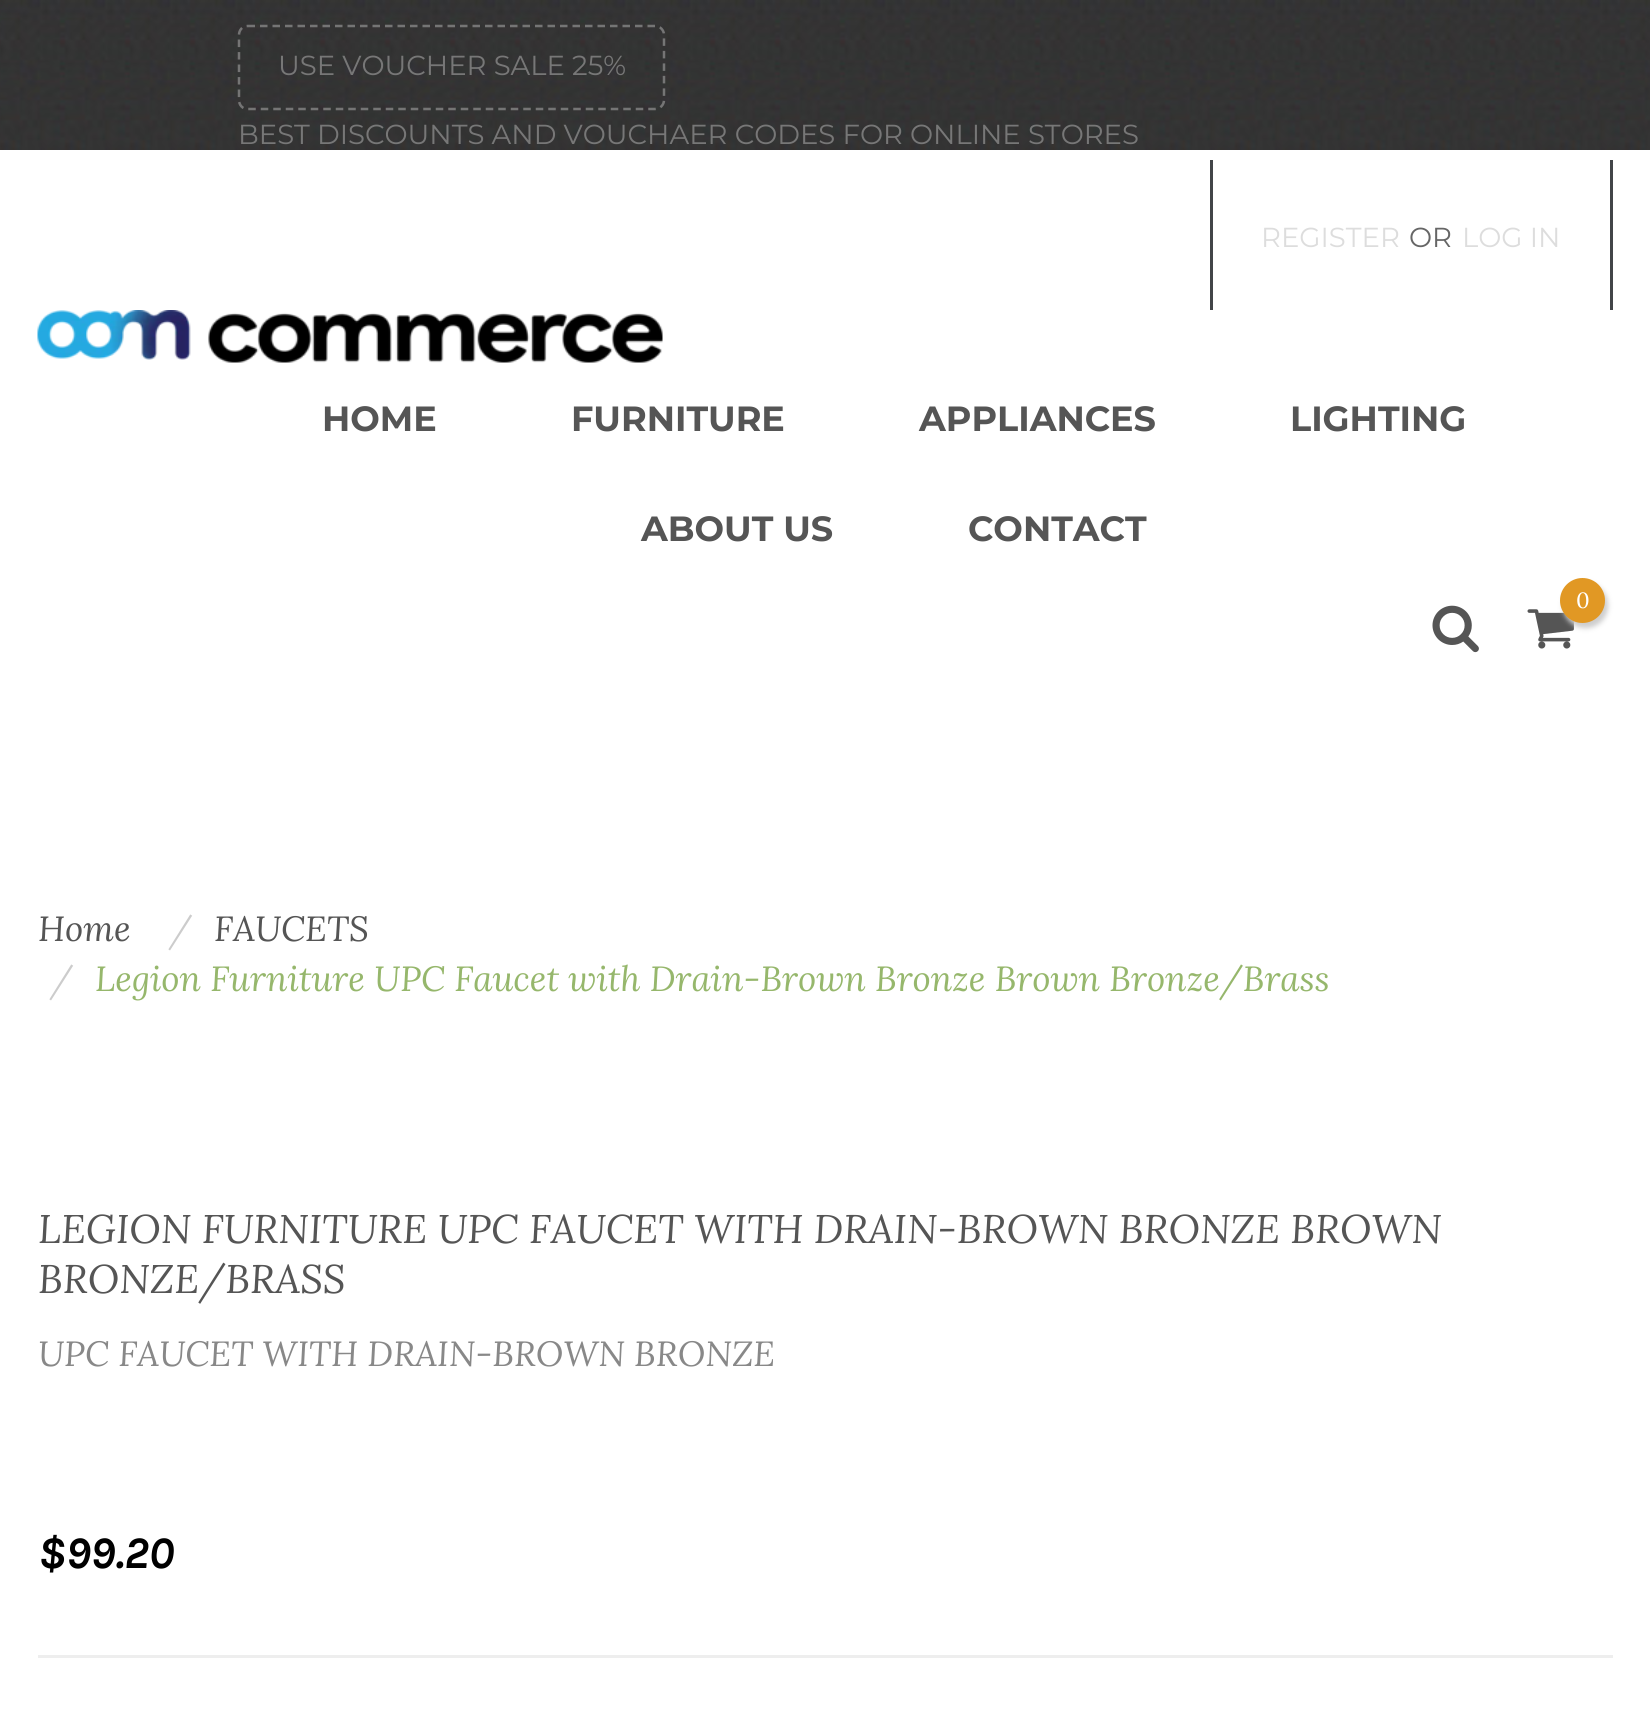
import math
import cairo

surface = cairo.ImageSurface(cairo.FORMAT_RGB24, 1650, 1718)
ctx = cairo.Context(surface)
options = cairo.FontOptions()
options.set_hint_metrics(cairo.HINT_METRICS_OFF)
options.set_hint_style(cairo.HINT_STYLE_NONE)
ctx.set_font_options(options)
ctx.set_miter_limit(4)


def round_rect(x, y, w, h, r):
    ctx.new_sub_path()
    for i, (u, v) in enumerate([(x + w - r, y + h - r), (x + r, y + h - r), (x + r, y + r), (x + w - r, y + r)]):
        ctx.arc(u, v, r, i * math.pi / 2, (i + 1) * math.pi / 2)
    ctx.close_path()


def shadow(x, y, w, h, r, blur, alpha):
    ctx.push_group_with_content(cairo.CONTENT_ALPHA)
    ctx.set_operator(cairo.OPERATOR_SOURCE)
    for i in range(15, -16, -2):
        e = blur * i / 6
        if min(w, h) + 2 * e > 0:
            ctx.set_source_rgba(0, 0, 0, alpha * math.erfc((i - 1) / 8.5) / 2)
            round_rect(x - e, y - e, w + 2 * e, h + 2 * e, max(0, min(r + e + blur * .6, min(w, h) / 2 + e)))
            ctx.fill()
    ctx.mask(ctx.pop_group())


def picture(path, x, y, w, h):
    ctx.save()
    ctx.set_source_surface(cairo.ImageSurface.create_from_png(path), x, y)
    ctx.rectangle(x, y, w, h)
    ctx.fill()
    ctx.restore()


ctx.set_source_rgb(1, 1, 1)
ctx.paint()
picture("img1.png", 0, 0, 1650, 150)
ctx.new_path()
ctx.move_to(247.5, 26)
ctx.line_to(655, 26)
ctx.curve_to(660, 26, 664, 30, 664, 35)
ctx.line_to(664, 100)
ctx.curve_to(664, 105, 660, 109, 655, 109)
ctx.line_to(247.5, 109)
ctx.curve_to(242.5, 109, 239, 105, 239, 100)
ctx.line_to(239, 35)
ctx.curve_to(239, 30, 242.5, 26, 247.5, 26)
ctx.close_path()
ctx.set_source_rgb(0.459, 0.459, 0.459)
ctx.set_line_width(2.5)
ctx.set_dash([7.5, 5])
ctx.stroke()
ctx.select_font_face("Montserrat")
ctx.set_font_size(27.5)
ctx.set_source_rgb(0.467, 0.467, 0.467)
ctx.move_to(278, 75)
ctx.show_text("USE VOUCHER SALE 25%")
ctx.move_to(238, 144)
ctx.show_text("BEST DISCOUNTS AND VOUCHAER CODES FOR ONLINE STORES")
ctx.set_source_rgb(0.259, 0.271, 0.282)
ctx.rectangle(1610, 160, 3, 150)
ctx.fill()
ctx.rectangle(1210, 160, 3, 150)
ctx.fill()
ctx.set_source_rgb(0.867, 0.867, 0.867)
ctx.move_to(1261, 247)
ctx.show_text("REGISTER")
ctx.set_source_rgb(0.4, 0.4, 0.4)
ctx.move_to(1409, 247)
ctx.show_text("OR")
ctx.set_source_rgb(0.867, 0.867, 0.867)
ctx.move_to(1462, 247)
ctx.show_text("LOG IN")
picture("img2.png", 37, 310, 626, 53)
ctx.select_font_face("Montserrat", cairo.FONT_SLANT_NORMAL, cairo.FONT_WEIGHT_BOLD)
ctx.set_font_size(35)
ctx.set_source_rgb(0.333, 0.333, 0.333)
ctx.move_to(322, 431)
ctx.show_text("HOME")
ctx.move_to(571, 431)
ctx.show_text("FURNITURE")
ctx.move_to(919, 431)
ctx.show_text("APPLIANCES")
ctx.move_to(1290, 431)
ctx.show_text("LIGHTING")
ctx.move_to(641, 541)
ctx.show_text("ABOUT US")
ctx.move_to(968, 541)
ctx.show_text("CONTACT")
picture("img3.png", 1527, 609, 47, 40)
ctx.set_source_rgb(0.804, 0.804, 0.804)
shadow(1563, 583, 45, 45, 22.5, 2.5, 1)
ctx.set_source_rgb(0.882, 0.596, 0.141)
ctx.arc(1582.5, 600.5, 22.5, 0, 2 * math.pi)
ctx.fill()
ctx.select_font_face("Lora")
ctx.set_font_size(22)
ctx.set_source_rgb(1, 1, 1)
ctx.move_to(1576, 608)
ctx.show_text("0")
picture("img4.png", 1432, 605, 47, 48)
ctx.select_font_face("Lora", cairo.FONT_SLANT_ITALIC)
ctx.set_font_size(35)
ctx.set_source_rgb(0.333, 0.333, 0.333)
ctx.move_to(38, 941)
ctx.show_text("Home")
ctx.set_source_rgb(0.8, 0.8, 0.8)
ctx.move_to(169, 941)
ctx.show_text("/")
ctx.set_source_rgb(0.333, 0.333, 0.333)
ctx.move_to(214, 941)
ctx.show_text("FAUCETS")
ctx.set_source_rgb(0.8, 0.8, 0.8)
ctx.move_to(50, 991)
ctx.show_text("/")
ctx.set_source_rgb(0.588, 0.718, 0.424)
ctx.move_to(95, 991)
ctx.show_text("Legion Furniture UPC Faucet with Drain-Brown Bronze Brown Bronze/Brass")
ctx.set_font_size(40)
ctx.set_source_rgb(0.333, 0.333, 0.333)
ctx.move_to(38, 1243)
ctx.show_text("LEGION FURNITURE UPC FAUCET WITH DRAIN-BROWN BRONZE BROWN")
ctx.move_to(38, 1293)
ctx.show_text("BRONZE/BRASS")
ctx.set_font_size(35)
ctx.set_source_rgb(0.533, 0.533, 0.533)
ctx.move_to(38, 1366)
ctx.show_text("UPC FAUCET WITH DRAIN-BROWN BRONZE")
ctx.set_source_rgb(0.933, 0.933, 0.933)
ctx.rectangle(38, 1655, 1575, 3)
ctx.fill()
ctx.select_font_face("Karla", cairo.FONT_SLANT_ITALIC, cairo.FONT_WEIGHT_BOLD)
ctx.set_font_size(45)
ctx.set_source_rgb(0, 0, 0)
ctx.move_to(38, 1568)
ctx.show_text("$99.20")
surface.write_to_png("page.png")
